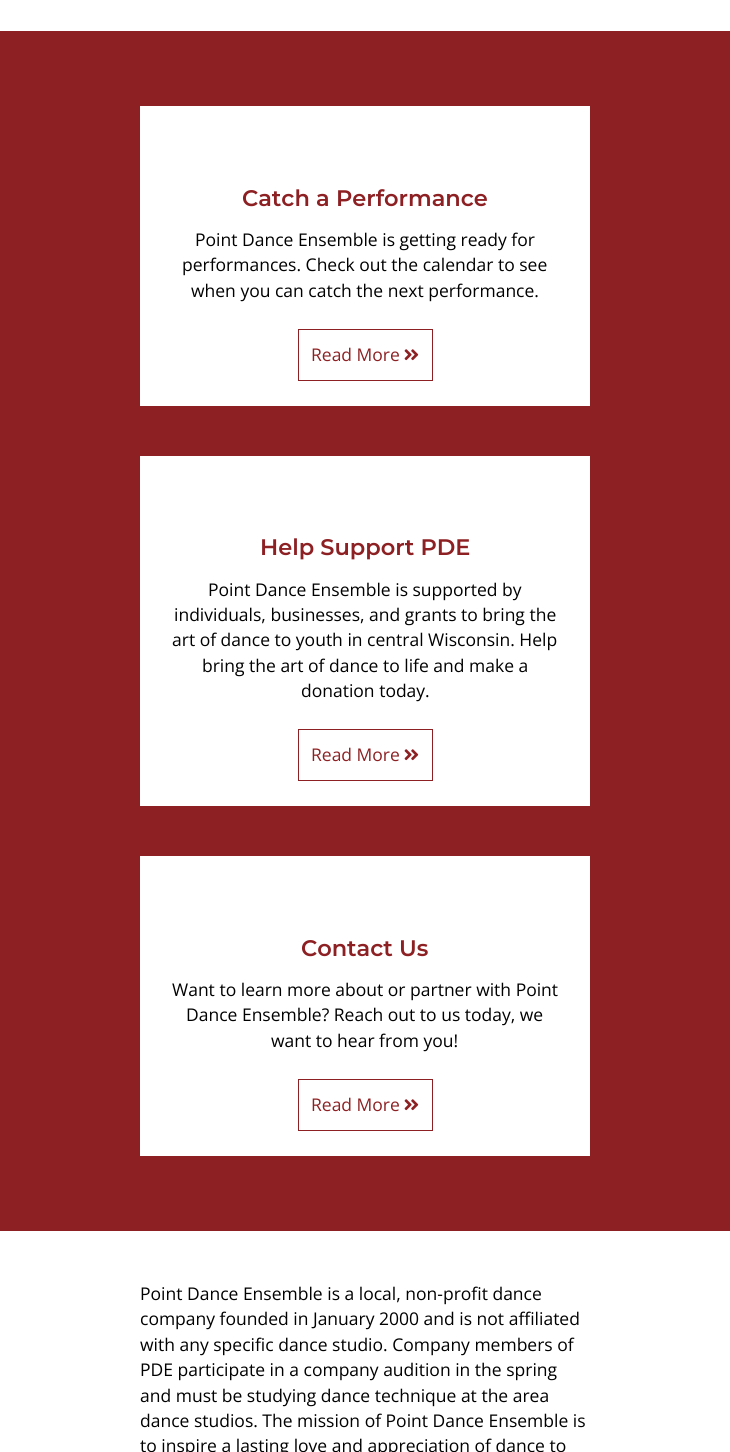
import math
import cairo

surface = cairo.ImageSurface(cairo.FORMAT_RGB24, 730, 1452)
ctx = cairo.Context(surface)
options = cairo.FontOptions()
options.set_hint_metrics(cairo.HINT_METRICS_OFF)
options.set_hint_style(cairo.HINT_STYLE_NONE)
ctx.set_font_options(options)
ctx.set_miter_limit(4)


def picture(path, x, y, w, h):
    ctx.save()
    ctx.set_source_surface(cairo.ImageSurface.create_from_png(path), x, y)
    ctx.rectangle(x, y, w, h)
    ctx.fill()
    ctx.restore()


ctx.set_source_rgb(1, 1, 1)
ctx.paint()
ctx.set_source_rgb(0.553, 0.125, 0.137)
ctx.rectangle(0, 31, 730, 1200)
ctx.fill()
ctx.set_source_rgb(1, 1, 1)
ctx.rectangle(140, 106, 450, 300)
ctx.fill()
ctx.select_font_face("Montserrat Thin")
ctx.set_font_size(22.5)
ctx.set_source_rgb(0.553, 0.125, 0.137)
ctx.move_to(242, 206)
ctx.show_text("Catch a Performance")
ctx.select_font_face("Open Sans")
ctx.set_font_size(17.5)
ctx.set_source_rgb(0.004, 0.004, 0.004)
ctx.move_to(195, 246)
ctx.show_text("Point Dance Ensemble is getting ready for")
ctx.move_to(182, 271)
ctx.show_text("performances. Check out the calendar to see")
ctx.move_to(191, 297)
ctx.show_text("when you can catch the next performance.")
ctx.rectangle(298.5, 329.5, 134, 51)
ctx.set_source_rgb(0.553, 0.125, 0.137)
ctx.set_line_width(1)
ctx.stroke()
ctx.move_to(311, 361)
ctx.show_text("Read More")
picture("img1.png", 404, 349, 15, 12)
ctx.set_source_rgb(1, 1, 1)
ctx.rectangle(140, 456, 450, 350)
ctx.fill()
ctx.select_font_face("Montserrat Thin")
ctx.set_font_size(22.5)
ctx.set_source_rgb(0.553, 0.125, 0.137)
ctx.move_to(260, 555)
ctx.show_text("Help Support PDE")
ctx.select_font_face("Open Sans")
ctx.set_font_size(17.5)
ctx.set_source_rgb(0.004, 0.004, 0.004)
ctx.move_to(208, 596)
ctx.show_text("Point Dance Ensemble is supported by")
ctx.move_to(174, 621)
ctx.show_text("individuals, businesses, and grants to bring the")
ctx.move_to(172, 646)
ctx.show_text("art of dance to youth in central Wisconsin. Help")
ctx.move_to(202, 672)
ctx.show_text("bring the art of dance to life and make a")
ctx.move_to(301, 697)
ctx.show_text("donation today.")
ctx.rectangle(298.5, 729.5, 134, 51)
ctx.set_source_rgb(0.553, 0.125, 0.137)
ctx.stroke()
ctx.move_to(311, 761)
ctx.show_text("Read More")
picture("img1.png", 404, 749, 15, 12)
ctx.set_source_rgb(1, 1, 1)
ctx.rectangle(140, 856, 450, 300)
ctx.fill()
ctx.select_font_face("Montserrat Thin")
ctx.set_font_size(22.5)
ctx.set_source_rgb(0.553, 0.125, 0.137)
ctx.move_to(301, 956)
ctx.show_text("Contact Us")
ctx.select_font_face("Open Sans")
ctx.set_font_size(17.5)
ctx.set_source_rgb(0.004, 0.004, 0.004)
ctx.move_to(172, 996)
ctx.show_text("Want to learn more about or partner with Point")
ctx.move_to(186, 1021)
ctx.show_text("Dance Ensemble? Reach out to us today, we")
ctx.move_to(271, 1047)
ctx.show_text("want to hear from you!")
ctx.rectangle(298.5, 1079.5, 134, 51)
ctx.set_source_rgb(0.553, 0.125, 0.137)
ctx.stroke()
ctx.move_to(311, 1111)
ctx.show_text("Read More")
picture("img1.png", 404, 1099, 15, 12)
ctx.set_source_rgb(0.004, 0.004, 0.004)
ctx.move_to(140, 1300)
ctx.show_text("Point Dance Ensemble is a local, non-profit dance")
ctx.move_to(140, 1325)
ctx.show_text("company founded in January 2000 and is not affiliated")
ctx.move_to(140, 1351)
ctx.show_text("with any specific dance studio. Company members of")
ctx.move_to(140, 1376)
ctx.show_text("PDE participate in a company audition in the spring")
ctx.move_to(140, 1402)
ctx.show_text("and must be studying dance technique at the area")
ctx.move_to(140, 1427)
ctx.show_text("dance studios. The mission of Point Dance Ensemble is")
ctx.move_to(140, 1452)
ctx.show_text("to inspire a lasting love and appreciation of dance to")
surface.write_to_png("page.png")
